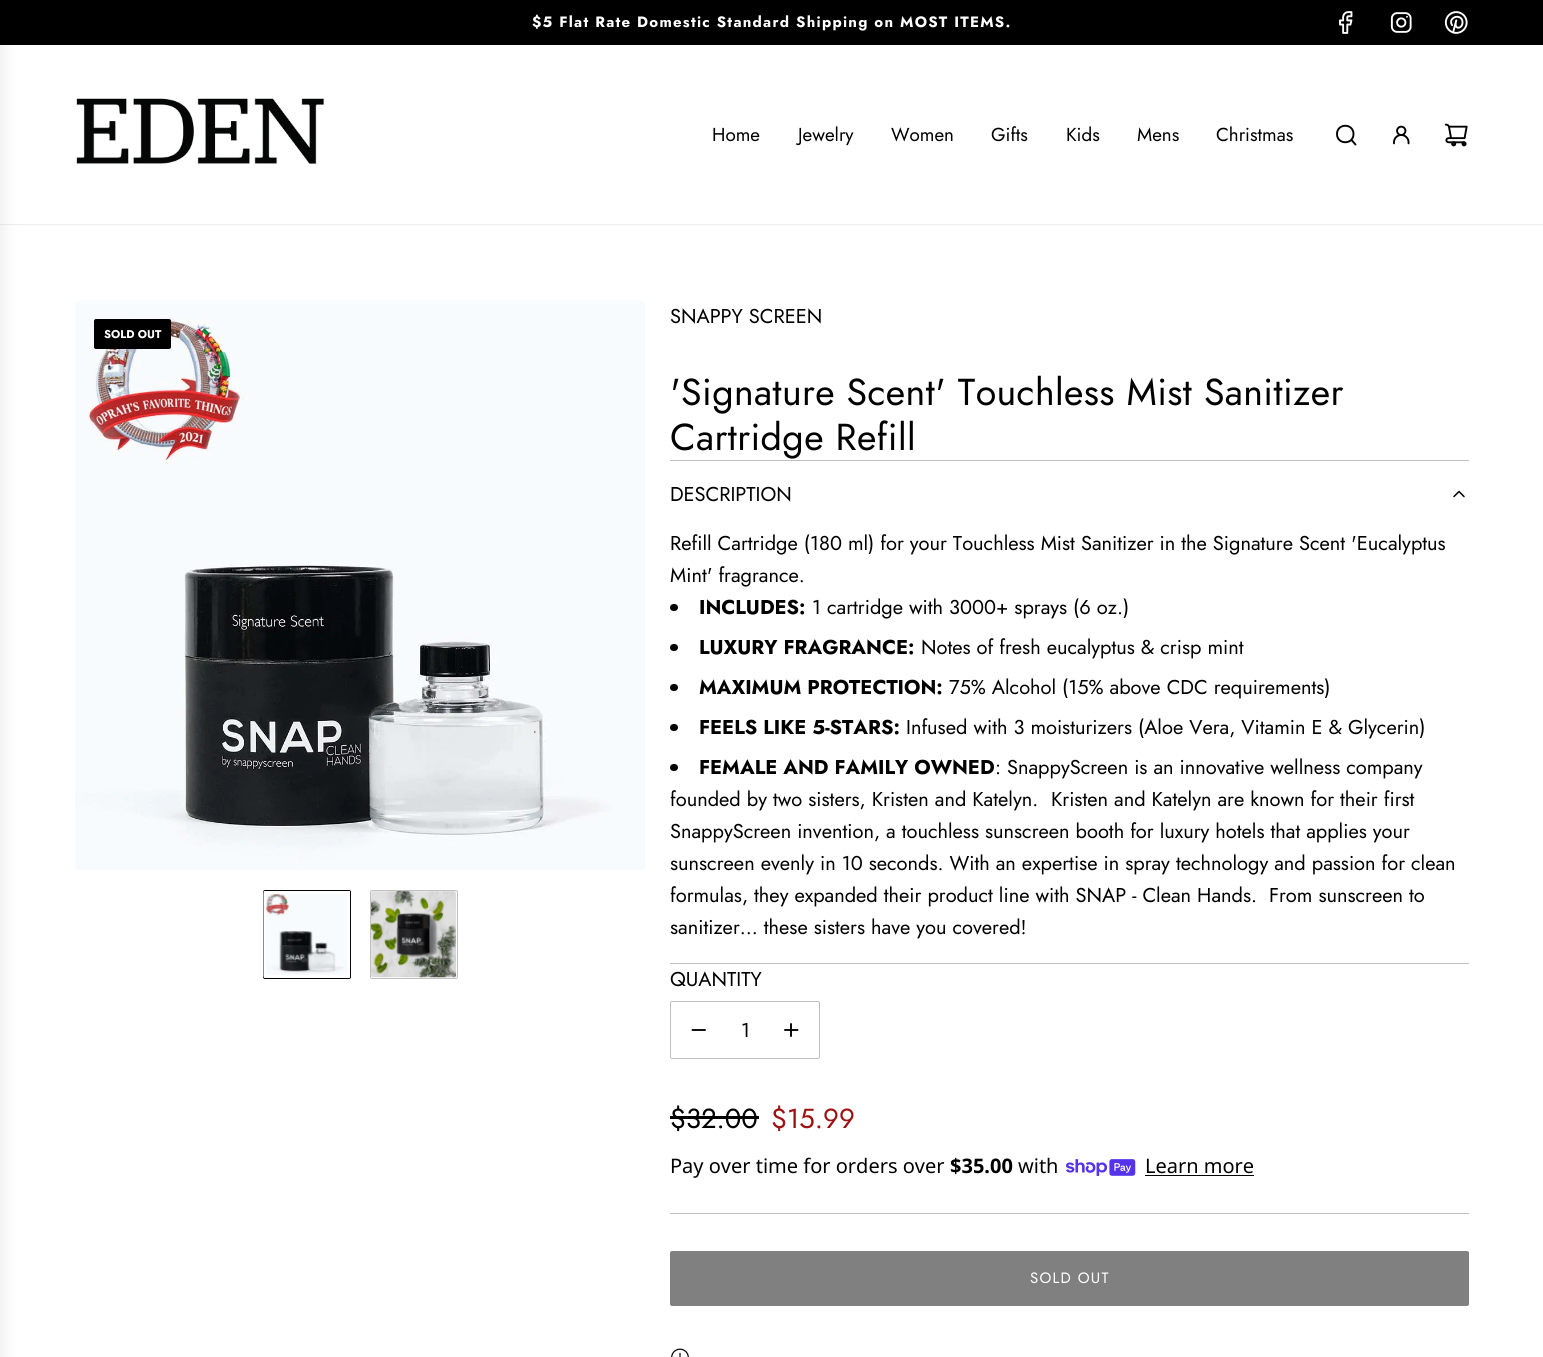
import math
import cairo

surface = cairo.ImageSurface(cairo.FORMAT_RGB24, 1543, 1357)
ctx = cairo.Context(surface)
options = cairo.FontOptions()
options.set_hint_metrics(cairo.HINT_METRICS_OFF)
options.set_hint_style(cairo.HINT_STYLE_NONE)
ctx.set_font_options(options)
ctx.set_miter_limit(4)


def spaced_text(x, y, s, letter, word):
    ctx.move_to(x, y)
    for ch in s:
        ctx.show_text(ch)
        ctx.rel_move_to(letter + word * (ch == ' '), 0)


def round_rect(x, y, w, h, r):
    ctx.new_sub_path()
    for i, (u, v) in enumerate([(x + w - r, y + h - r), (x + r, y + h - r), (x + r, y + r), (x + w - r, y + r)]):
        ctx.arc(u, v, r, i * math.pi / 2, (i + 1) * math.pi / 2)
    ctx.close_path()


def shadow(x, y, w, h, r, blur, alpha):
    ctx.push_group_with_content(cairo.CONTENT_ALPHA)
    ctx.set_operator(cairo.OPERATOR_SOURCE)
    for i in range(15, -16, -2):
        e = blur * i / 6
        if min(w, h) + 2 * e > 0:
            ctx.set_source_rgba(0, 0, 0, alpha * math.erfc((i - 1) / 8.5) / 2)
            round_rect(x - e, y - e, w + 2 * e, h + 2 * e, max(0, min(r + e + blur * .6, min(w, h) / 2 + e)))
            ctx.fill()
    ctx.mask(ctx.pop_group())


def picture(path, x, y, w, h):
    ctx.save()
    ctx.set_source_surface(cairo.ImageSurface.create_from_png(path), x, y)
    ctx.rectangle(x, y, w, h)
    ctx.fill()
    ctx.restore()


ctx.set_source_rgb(1, 1, 1)
ctx.paint()
ctx.set_source_rgb(0, 0, 0)
ctx.rectangle(0, 0, 1543, 45)
ctx.fill()
ctx.select_font_face("Jost", cairo.FONT_SLANT_NORMAL, cairo.FONT_WEIGHT_BOLD)
ctx.set_font_size(15)
ctx.set_source_rgb(1, 1, 1)
spaced_text(532, 27, "$5 Flat Rate Domestic Standard Shipping on MOST ITEMS.", 1.25, 0)
picture("img1.png", 1339, 11, 14, 23)
picture("img2.png", 1390, 12, 22, 21)
picture("img3.png", 1444, 11, 24, 23)
ctx.set_source_rgb(0.933, 0.933, 0.933)
ctx.rectangle(0, 224, 1543, 1)
ctx.fill()
ctx.set_source_rgb(0, 0, 0)
shadow(-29, 6, 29, 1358, 0, 9.5, 0.1)
picture("img4.png", 76, 98, 248, 67)
ctx.select_font_face("Jost")
ctx.set_font_size(18.75)
ctx.set_source_rgb(0, 0, 0)
ctx.move_to(712, 141)
ctx.show_text("Home")
ctx.move_to(798, 141)
ctx.show_text("Jewelry")
ctx.move_to(891, 141)
ctx.show_text("Women")
ctx.move_to(991, 141)
ctx.show_text("Gifts")
ctx.move_to(1066, 141)
ctx.show_text("Kids")
ctx.move_to(1137, 141)
ctx.show_text("Mens")
ctx.move_to(1216, 141)
ctx.show_text("Christmas")
ctx.new_path()
ctx.move_to(1351.5, 140)
ctx.line_to(1355.5, 144.5)
ctx.move_to(1337, 134)
ctx.curve_to(1337, 145, 1353.5, 145, 1353.5, 134)
ctx.curve_to(1353.5, 123, 1337, 123, 1337, 134)
ctx.close_path()
ctx.set_line_width(1.9)
ctx.set_line_cap(cairo.LINE_CAP_ROUND)
ctx.set_line_join(cairo.LINE_JOIN_ROUND)
ctx.stroke()
picture("img5.png", 1393, 125, 17, 20)
picture("img6.png", 1444, 123, 24, 24)
picture("img7.png", 75, 300, 570, 570)
round_rect(94, 319, 77, 30, 2)
ctx.fill()
ctx.select_font_face("Jost", cairo.FONT_SLANT_NORMAL, cairo.FONT_WEIGHT_BOLD)
ctx.set_font_size(11.25)
ctx.set_source_rgb(1, 1, 1)
ctx.move_to(104, 338)
ctx.show_text("SOLD OUT")
round_rect(263.5, 890.5, 87, 88, 1.5)
ctx.set_source_rgb(0, 0, 0)
ctx.set_line_width(1)
ctx.set_line_cap(cairo.LINE_CAP_BUTT)
ctx.set_line_join(cairo.LINE_JOIN_MITER)
ctx.stroke()
picture("img8.png", 263, 891, 88, 87)
ctx.new_path()
ctx.move_to(265, 892.5)
ctx.line_to(348.5, 892.5)
ctx.line_to(348.5, 976)
ctx.line_to(265, 976)
ctx.close_path()
ctx.set_source_rgb(1, 1, 1)
ctx.set_line_width(2.5)
ctx.stroke()
round_rect(370.5, 890.5, 87, 88, 1.5)
ctx.set_source_rgb(0.749, 0.749, 0.749)
ctx.set_line_width(1)
ctx.stroke()
picture("img9.png", 371, 891, 86, 87)
ctx.select_font_face("Jost")
ctx.set_font_size(20)
ctx.set_source_rgb(0, 0, 0)
ctx.move_to(670, 323)
ctx.show_text("SNAPPY SCREEN")
ctx.set_font_size(37.5)
spaced_text(670, 405, "'Signature Scent' Touchless Mist Sanitizer", 0.4, 0)
spaced_text(670, 450, "Cartridge Refill", 0.4, 0)
ctx.set_source_rgb(0.749, 0.749, 0.749)
ctx.rectangle(670, 460, 799, 1)
ctx.fill()
ctx.rectangle(670, 963, 799, 1)
ctx.fill()
ctx.set_font_size(20)
ctx.set_source_rgb(0, 0, 0)
ctx.move_to(670, 501)
ctx.show_text("DESCRIPTION")
ctx.new_path()
ctx.move_to(1454, 496.5)
ctx.line_to(1459, 491.5)
ctx.line_to(1464, 496.5)
ctx.set_line_width(1.5)
ctx.set_line_cap(cairo.LINE_CAP_ROUND)
ctx.set_line_join(cairo.LINE_JOIN_ROUND)
ctx.stroke()
ctx.move_to(670, 550)
ctx.show_text("Refill Cartridge (180 ml) for your Touchless Mist Sanitizer in the Signature Scent 'Eucalyptus")
ctx.move_to(670, 582)
ctx.show_text("Mint' fragrance.")
round_rect(670, 604, 8, 7, 3.5)
ctx.fill()
ctx.select_font_face("Jost", cairo.FONT_SLANT_NORMAL, cairo.FONT_WEIGHT_BOLD)
ctx.move_to(699, 614)
ctx.show_text("INCLUDES:")
ctx.select_font_face("Jost")
ctx.move_to(812, 614)
ctx.show_text("1 cartridge with 3000+ sprays (6 oz.)")
round_rect(670, 644, 8, 7, 3.5)
ctx.fill()
ctx.select_font_face("Jost", cairo.FONT_SLANT_NORMAL, cairo.FONT_WEIGHT_BOLD)
ctx.move_to(699, 654)
ctx.show_text("LUXURY FRAGRANCE:")
ctx.select_font_face("Jost")
ctx.move_to(921, 654)
ctx.show_text("Notes of fresh eucalyptus & crisp mint")
round_rect(670, 684, 8, 7, 3.5)
ctx.fill()
ctx.select_font_face("Jost", cairo.FONT_SLANT_NORMAL, cairo.FONT_WEIGHT_BOLD)
ctx.move_to(699, 694)
ctx.show_text("MAXIMUM PROTECTION:")
ctx.select_font_face("Jost")
ctx.move_to(949, 694)
ctx.show_text("75% Alcohol (15% above CDC requirements)")
round_rect(670, 724, 8, 7, 3.5)
ctx.fill()
ctx.select_font_face("Jost", cairo.FONT_SLANT_NORMAL, cairo.FONT_WEIGHT_BOLD)
ctx.move_to(699, 734)
ctx.show_text("FEELS LIKE 5-STARS:")
ctx.select_font_face("Jost")
ctx.move_to(906, 734)
ctx.show_text("Infused with 3 moisturizers (Aloe Vera, Vitamin E & Glycerin)")
round_rect(670, 764, 8, 7, 3.5)
ctx.fill()
ctx.select_font_face("Jost", cairo.FONT_SLANT_NORMAL, cairo.FONT_WEIGHT_BOLD)
ctx.move_to(699, 774)
ctx.show_text("FEMALE AND FAMILY OWNED")
ctx.select_font_face("Jost")
ctx.move_to(995, 774)
ctx.show_text(": SnappyScreen is an innovative wellness company")
ctx.move_to(670, 806)
ctx.show_text("founded by two sisters, Kristen and Katelyn.")
ctx.move_to(1051, 806)
ctx.show_text("Kristen and Katelyn are known for their first")
ctx.move_to(670, 838)
ctx.show_text("SnappyScreen invention, a touchless sunscreen booth for luxury hotels that applies your")
ctx.move_to(670, 870)
ctx.show_text("sunscreen evenly in 10 seconds. With an expertise in spray technology and passion for clean")
ctx.move_to(670, 902)
ctx.show_text("formulas, they expanded their product line with SNAP - Clean Hands.")
ctx.move_to(1269, 902)
ctx.show_text("From sunscreen to")
ctx.move_to(670, 934)
ctx.show_text("sanitizer… these sisters have you covered!")
ctx.move_to(670, 986)
ctx.show_text("QUANTITY")
round_rect(670.5, 1001.5, 149, 57, 1.5)
ctx.set_source_rgb(0.749, 0.749, 0.749)
ctx.set_line_width(1)
ctx.set_line_cap(cairo.LINE_CAP_BUTT)
ctx.set_line_join(cairo.LINE_JOIN_MITER)
ctx.stroke()
ctx.new_path()
ctx.move_to(692.5, 1030)
ctx.line_to(705, 1030)
ctx.set_source_rgb(0, 0, 0)
ctx.set_line_width(1.9)
ctx.set_line_cap(cairo.LINE_CAP_ROUND)
ctx.set_line_join(cairo.LINE_JOIN_ROUND)
ctx.stroke()
ctx.move_to(741, 1037)
ctx.show_text("1")
ctx.new_path()
ctx.move_to(785, 1030)
ctx.line_to(791, 1030)
ctx.move_to(791, 1030)
ctx.line_to(797.5, 1030)
ctx.move_to(791, 1030)
ctx.line_to(791, 1024)
ctx.move_to(791, 1030)
ctx.line_to(791, 1036)
ctx.stroke()
ctx.set_font_size(27.5)
ctx.move_to(670, 1128)
ctx.show_text("$32.00")
ctx.rectangle(670, 1116, 89, 3)
ctx.fill()
ctx.set_source_rgb(0.624, 0.067, 0.067)
ctx.move_to(771, 1128)
ctx.show_text("$15.99")
ctx.select_font_face("Noto Sans")
ctx.set_font_size(20)
ctx.set_source_rgb(0, 0, 0)
ctx.move_to(670, 1173)
ctx.show_text("Pay over time for orders over")
ctx.select_font_face("Noto Sans", cairo.FONT_SLANT_NORMAL, cairo.FONT_WEIGHT_BOLD)
ctx.move_to(950, 1173)
ctx.show_text("$35.00")
ctx.select_font_face("Noto Sans")
ctx.move_to(1018, 1173)
ctx.show_text("with")
picture("img10.png", 1066, 1159, 70, 17)
ctx.move_to(1145, 1173)
ctx.show_text("Learn more")
ctx.rectangle(1145, 1175, 109, 1)
ctx.fill()
ctx.set_source_rgb(0.749, 0.749, 0.749)
ctx.rectangle(670, 1213, 799, 1)
ctx.fill()
ctx.set_source_rgb(0.502, 0.502, 0.502)
round_rect(670, 1251, 799, 55, 2)
ctx.fill()
ctx.select_font_face("Jost")
ctx.set_font_size(15)
ctx.set_source_rgb(1, 1, 1)
spaced_text(1030, 1283, "SOLD OUT", 1.25, 0)
picture("img11.png", 671, 1348, 18, 9)
surface.write_to_png("page.png")
